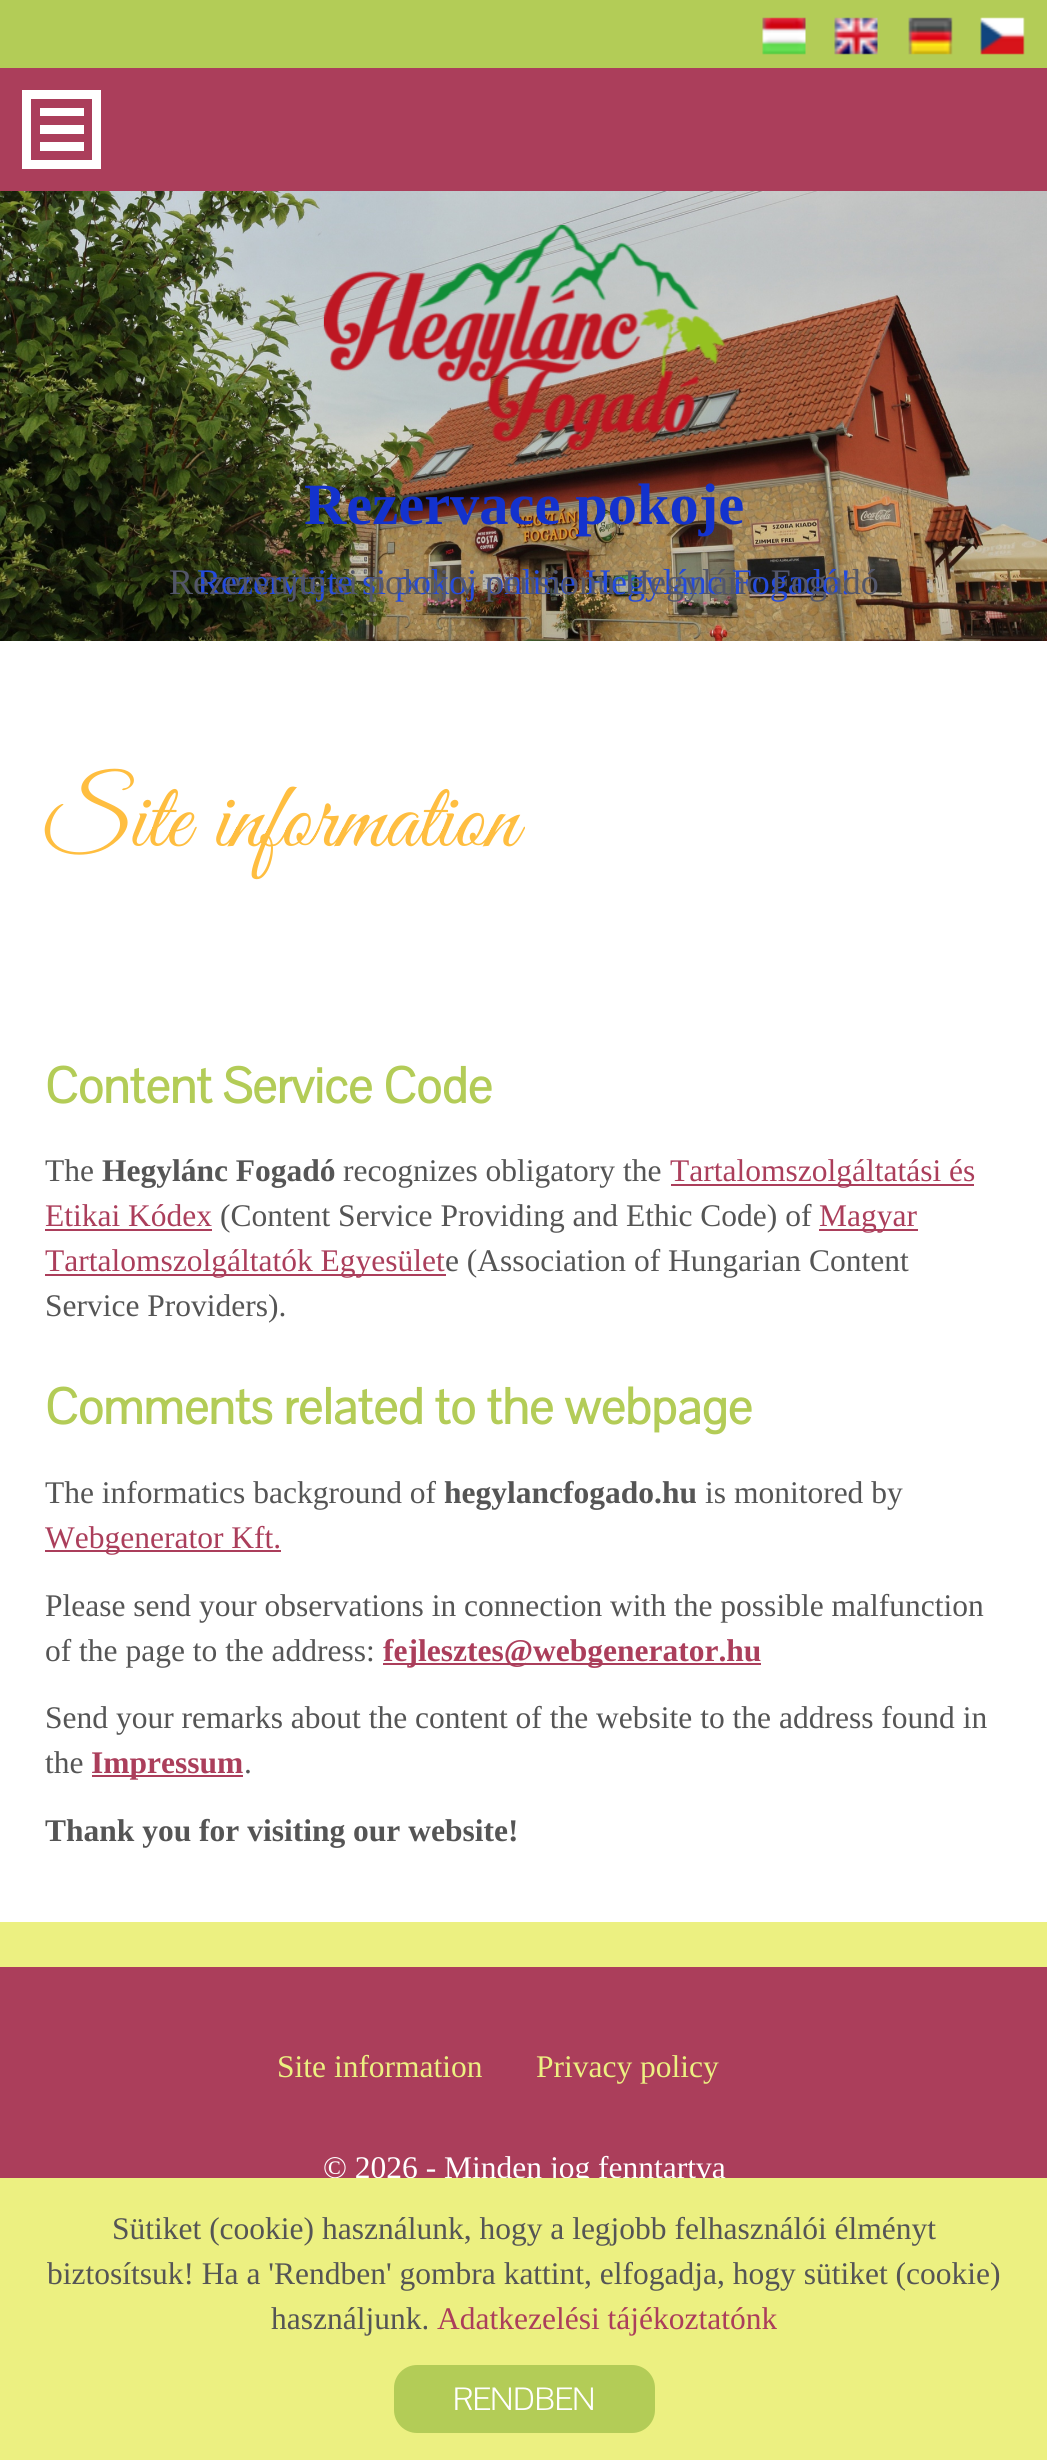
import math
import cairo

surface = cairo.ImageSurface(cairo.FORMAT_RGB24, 1047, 2460)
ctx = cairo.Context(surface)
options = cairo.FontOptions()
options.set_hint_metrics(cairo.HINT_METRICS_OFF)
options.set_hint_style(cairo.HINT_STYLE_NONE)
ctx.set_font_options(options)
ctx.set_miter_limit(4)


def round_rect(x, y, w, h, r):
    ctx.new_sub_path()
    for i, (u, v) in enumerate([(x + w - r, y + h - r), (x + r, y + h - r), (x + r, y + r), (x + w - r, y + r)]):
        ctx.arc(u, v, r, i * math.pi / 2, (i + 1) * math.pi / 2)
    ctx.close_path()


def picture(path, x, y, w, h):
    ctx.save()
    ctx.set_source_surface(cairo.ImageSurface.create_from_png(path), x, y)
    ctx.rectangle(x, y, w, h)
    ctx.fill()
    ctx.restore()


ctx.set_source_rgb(0.925, 0.941, 0.506)
ctx.paint()
ctx.set_source_rgb(0.702, 0.8, 0.341)
ctx.rectangle(0, 0, 1047, 68)
ctx.fill()
picture("img1.png", 762, 17, 44, 38)
picture("img2.png", 834, 17, 44, 38)
picture("img3.png", 908, 17, 45, 38)
picture("img4.png", 980, 17, 45, 38)
ctx.set_source_rgb(0.671, 0.243, 0.357)
ctx.rectangle(0, 68, 1047, 123)
ctx.fill()
ctx.set_source_rgb(1, 1, 1)
ctx.new_path()
ctx.move_to(40, 125)
ctx.line_to(40, 134)
ctx.line_to(84, 134)
ctx.line_to(84, 125)
ctx.close_path()
ctx.move_to(40, 142)
ctx.line_to(40, 151)
ctx.line_to(84, 151)
ctx.line_to(84, 142)
ctx.close_path()
ctx.move_to(40, 108)
ctx.line_to(40, 116)
ctx.line_to(84, 116)
ctx.line_to(84, 108)
ctx.close_path()
ctx.move_to(22, 90)
ctx.line_to(101, 90)
ctx.line_to(101, 169)
ctx.line_to(22, 169)
ctx.close_path()
ctx.move_to(92, 160)
ctx.line_to(92, 99)
ctx.line_to(31, 99)
ctx.line_to(31, 160)
ctx.close_path()
ctx.fill()
picture("img5.png", 0, 191, 1047, 450)
picture("img6.png", 323, 225, 402, 225)
ctx.select_font_face("Liberation Serif", cairo.FONT_SLANT_NORMAL, cairo.FONT_WEIGHT_BOLD)
ctx.set_font_size(58.5)
ctx.set_source_rgb(0.078, 0.196, 0.804)
ctx.move_to(304, 524)
ctx.show_text("Rezervace pokoje")
ctx.select_font_face("Liberation Serif")
ctx.set_font_size(36)
ctx.set_source_rgb(0.141, 0.294, 0.863)
ctx.move_to(197, 594)
ctx.show_text("Rezervujte si pokoj online Hegylánc Fogadó!")
ctx.set_source_rgb(0.325, 0.337, 0.412)
ctx.move_to(169, 594)
ctx.show_text("Rezervujte si pokoj v pensionu Hegylánc Fogadó")
ctx.set_source_rgb(1, 1, 1)
ctx.rectangle(0, 641, 1047, 1281)
ctx.fill()
ctx.select_font_face("Great Vibes")
ctx.set_font_size(94.5)
ctx.set_source_rgb(1, 0.745, 0.251)
ctx.move_to(45, 846)
ctx.show_text("Site information")
ctx.select_font_face("Pontano Sans", cairo.FONT_SLANT_NORMAL, cairo.FONT_WEIGHT_BOLD)
ctx.set_font_size(49.5)
ctx.set_source_rgb(0.702, 0.8, 0.341)
ctx.move_to(45, 1103)
ctx.show_text("Content Service Code")
ctx.select_font_face("Liberation Serif")
ctx.set_font_size(31.5)
ctx.set_source_rgb(0.333, 0.333, 0.333)
ctx.move_to(45, 1181)
ctx.show_text("The")
ctx.select_font_face("Liberation Serif", cairo.FONT_SLANT_NORMAL, cairo.FONT_WEIGHT_BOLD)
ctx.move_to(102, 1181)
ctx.show_text("Hegylánc Fogadó")
ctx.select_font_face("Liberation Serif")
ctx.move_to(343, 1181)
ctx.show_text("recognizes obligatory the")
ctx.set_source_rgb(0.671, 0.243, 0.357)
ctx.rectangle(671, 1184, 303, 2)
ctx.fill()
ctx.move_to(670, 1181)
ctx.show_text("Tartalomszolgáltatási és")
ctx.move_to(45, 1226)
ctx.show_text("Etikai Kódex")
ctx.rectangle(45, 1229, 167, 2)
ctx.fill()
ctx.set_source_rgb(0.333, 0.333, 0.333)
ctx.move_to(220, 1226)
ctx.show_text("(Content Service Providing and Ethic Code) of")
ctx.set_source_rgb(0.671, 0.243, 0.357)
ctx.rectangle(819, 1229, 99, 2)
ctx.fill()
ctx.move_to(819, 1226)
ctx.show_text("Magyar")
ctx.rectangle(45, 1274, 401, 2)
ctx.fill()
ctx.move_to(45, 1271)
ctx.show_text("Tartalomszolgáltatók Egyesület")
ctx.set_source_rgb(0.333, 0.333, 0.333)
ctx.move_to(445, 1271)
ctx.show_text("e (Association of Hungarian Content")
ctx.move_to(45, 1316)
ctx.show_text("Service Providers).")
ctx.select_font_face("Pontano Sans", cairo.FONT_SLANT_NORMAL, cairo.FONT_WEIGHT_BOLD)
ctx.set_font_size(49.5)
ctx.set_source_rgb(0.702, 0.8, 0.341)
ctx.move_to(45, 1424)
ctx.show_text("Comments related to the webpage")
ctx.select_font_face("Liberation Serif")
ctx.set_font_size(31.5)
ctx.set_source_rgb(0.333, 0.333, 0.333)
ctx.move_to(45, 1503)
ctx.show_text("The informatics background of")
ctx.select_font_face("Liberation Serif", cairo.FONT_SLANT_NORMAL, cairo.FONT_WEIGHT_BOLD)
ctx.move_to(444, 1503)
ctx.show_text("hegylancfogado.hu")
ctx.select_font_face("Liberation Serif")
ctx.move_to(705, 1503)
ctx.show_text("is monitored by")
ctx.set_source_rgb(0.671, 0.243, 0.357)
ctx.rectangle(45, 1550, 236, 2)
ctx.fill()
ctx.move_to(45, 1548)
ctx.show_text("Webgenerator Kft.")
ctx.set_source_rgb(0.333, 0.333, 0.333)
ctx.move_to(45, 1616)
ctx.show_text("Please send your observations in connection with the possible malfunction")
ctx.move_to(45, 1661)
ctx.show_text("of the page to the address:")
ctx.set_source_rgb(0.671, 0.243, 0.357)
ctx.rectangle(383, 1663, 378, 2)
ctx.fill()
ctx.select_font_face("Liberation Serif", cairo.FONT_SLANT_NORMAL, cairo.FONT_WEIGHT_BOLD)
ctx.move_to(383, 1661)
ctx.show_text("fejlesztes@webgenerator.hu")
ctx.select_font_face("Liberation Serif")
ctx.set_source_rgb(0.333, 0.333, 0.333)
ctx.move_to(45, 1728)
ctx.show_text("Send your remarks about the content of the website to the address found in")
ctx.move_to(45, 1773)
ctx.show_text("the")
ctx.set_source_rgb(0.671, 0.243, 0.357)
ctx.rectangle(92, 1775, 151, 2)
ctx.fill()
ctx.select_font_face("Liberation Serif", cairo.FONT_SLANT_NORMAL, cairo.FONT_WEIGHT_BOLD)
ctx.move_to(91, 1773)
ctx.show_text("Impressum")
ctx.select_font_face("Liberation Serif")
ctx.set_source_rgb(0.333, 0.333, 0.333)
ctx.move_to(244, 1773)
ctx.show_text(".")
ctx.select_font_face("Liberation Serif", cairo.FONT_SLANT_NORMAL, cairo.FONT_WEIGHT_BOLD)
ctx.move_to(45, 1841)
ctx.show_text("Thank you for visiting our website!")
ctx.set_source_rgb(0.671, 0.243, 0.357)
ctx.rectangle(0, 1967, 1047, 211)
ctx.fill()
ctx.select_font_face("Liberation Serif")
ctx.set_source_rgb(0.925, 0.941, 0.506)
ctx.move_to(277, 2077)
ctx.show_text("Site information")
ctx.move_to(536, 2077)
ctx.show_text("Privacy policy")
ctx.set_source_rgb(1, 1, 1)
ctx.move_to(323, 2178)
ctx.show_text("© 2026 - Minden jog fenntartva")
ctx.set_source_rgb(0.925, 0.941, 0.506)
ctx.rectangle(332, 2178, 387, 7)
ctx.fill()
ctx.set_source_rgb(0.333, 0.333, 0.333)
ctx.move_to(112, 2239)
ctx.show_text("Sütiket (cookie) használunk, hogy a legjobb felhasználói élményt")
ctx.move_to(47, 2284)
ctx.show_text("biztosítsuk! Ha a 'Rendben' gombra kattint, elfogadja, hogy sütiket (cookie)")
ctx.move_to(271, 2329)
ctx.show_text("használjunk.")
ctx.set_source_rgb(0.671, 0.243, 0.357)
ctx.move_to(437, 2329)
ctx.show_text("Adatkezelési tájékoztatónk")
ctx.set_source_rgb(0.702, 0.8, 0.341)
round_rect(388.5, 2359.5, 272, 79, 28.5)
ctx.fill_preserve()
ctx.set_source_rgb(0.925, 0.941, 0.506)
ctx.set_line_width(11)
ctx.stroke()
ctx.select_font_face("Pontano Sans")
ctx.set_source_rgb(1, 1, 1)
ctx.move_to(453, 2410)
ctx.show_text("RENDBEN")
surface.write_to_png("page.png")
